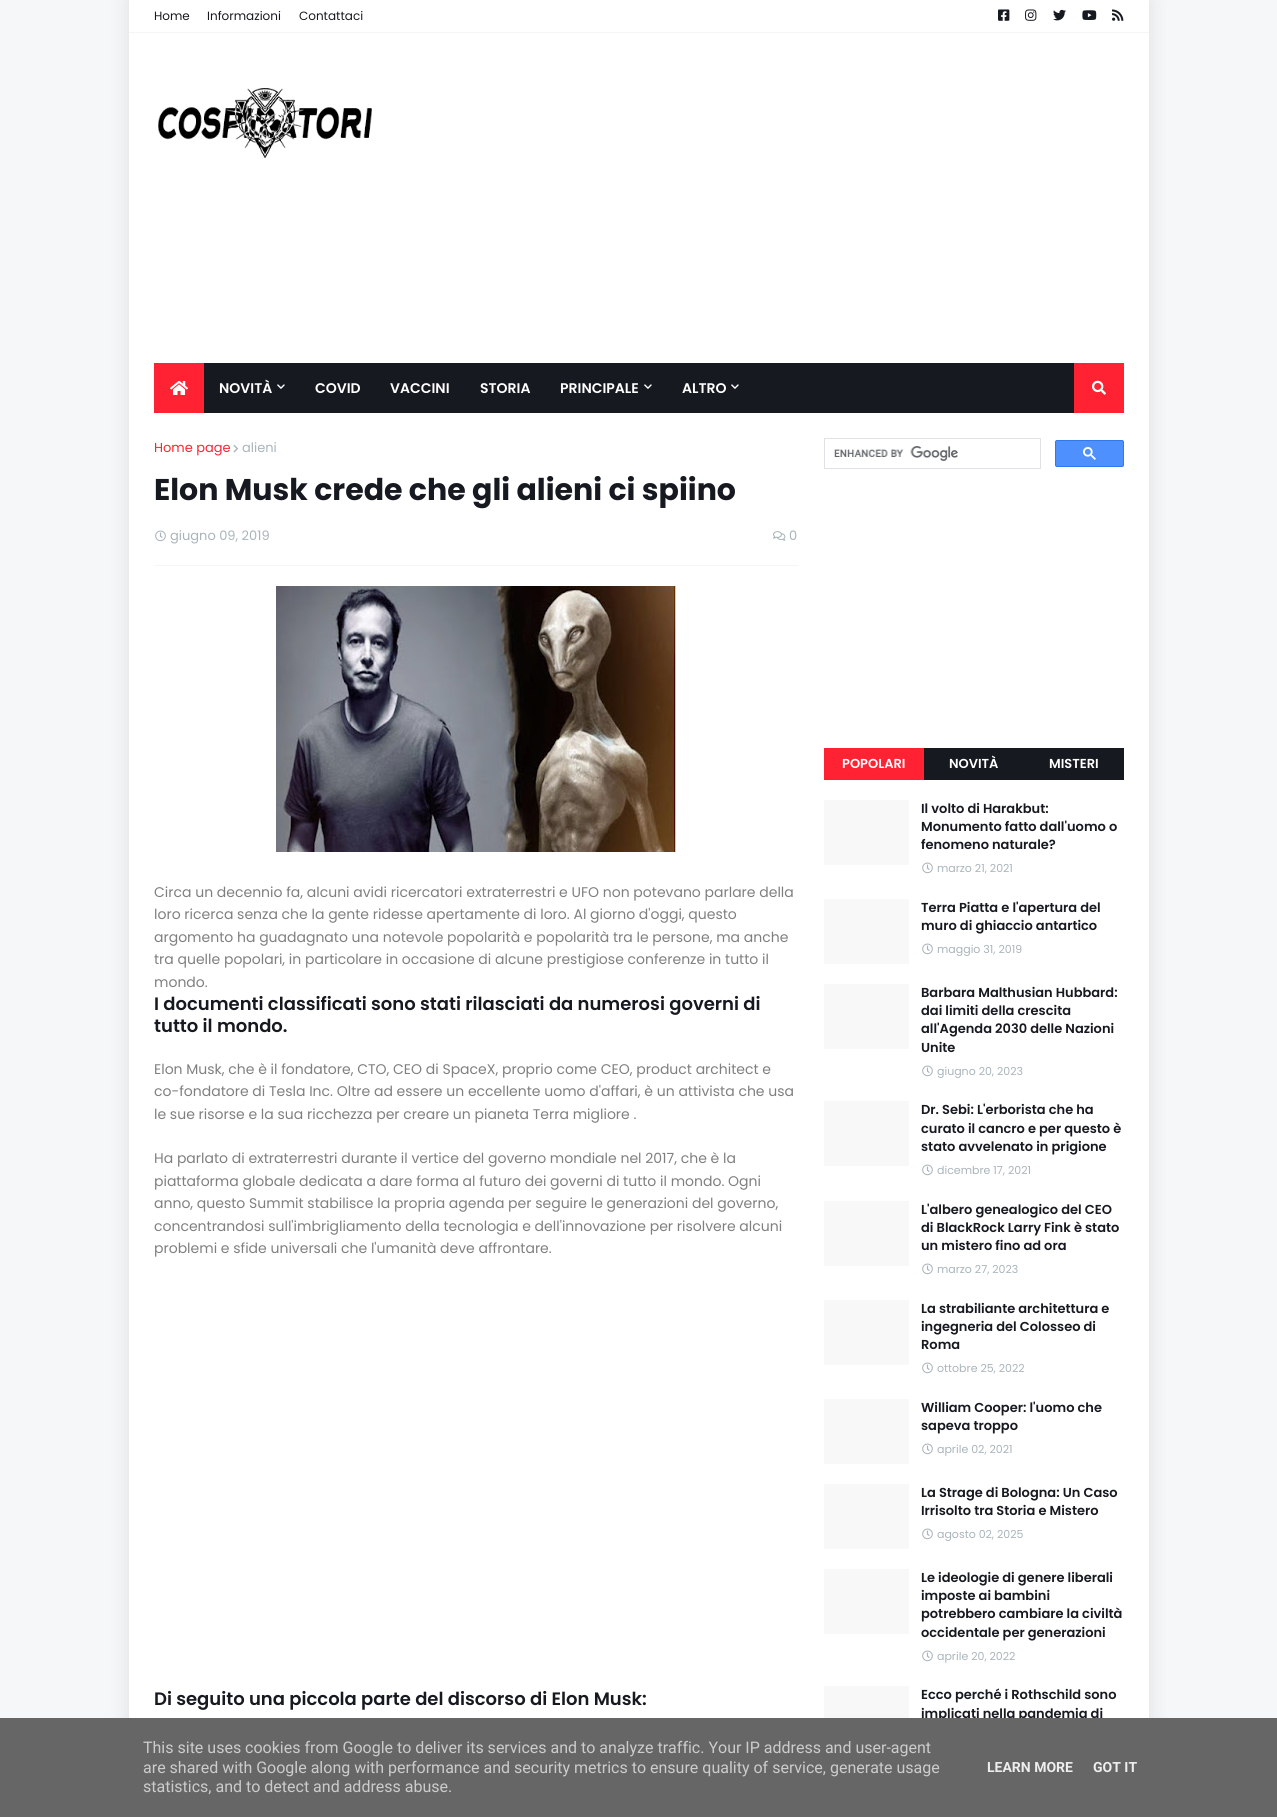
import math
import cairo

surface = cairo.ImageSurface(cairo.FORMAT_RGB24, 1277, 1817)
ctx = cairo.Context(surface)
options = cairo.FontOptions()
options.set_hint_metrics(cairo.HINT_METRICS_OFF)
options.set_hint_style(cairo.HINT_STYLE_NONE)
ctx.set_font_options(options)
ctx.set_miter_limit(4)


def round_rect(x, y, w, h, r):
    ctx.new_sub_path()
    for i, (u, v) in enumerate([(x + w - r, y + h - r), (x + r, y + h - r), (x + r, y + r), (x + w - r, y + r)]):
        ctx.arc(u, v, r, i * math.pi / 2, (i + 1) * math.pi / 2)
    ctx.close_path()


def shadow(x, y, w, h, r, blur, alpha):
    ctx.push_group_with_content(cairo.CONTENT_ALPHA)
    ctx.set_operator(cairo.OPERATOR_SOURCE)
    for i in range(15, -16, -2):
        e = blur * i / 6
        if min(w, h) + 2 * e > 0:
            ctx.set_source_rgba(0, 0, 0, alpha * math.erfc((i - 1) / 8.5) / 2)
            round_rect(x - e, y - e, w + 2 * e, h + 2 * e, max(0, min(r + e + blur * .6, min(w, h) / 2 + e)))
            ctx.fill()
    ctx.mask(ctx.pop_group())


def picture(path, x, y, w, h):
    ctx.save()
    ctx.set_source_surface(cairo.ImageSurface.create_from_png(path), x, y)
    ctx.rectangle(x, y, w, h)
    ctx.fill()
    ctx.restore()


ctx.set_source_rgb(0.961, 0.965, 0.969)
ctx.paint()
ctx.set_source_rgb(0, 0, 0)
shadow(129, 0, 1020, 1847, 0, 10, 0.1)
ctx.set_source_rgb(1, 1, 1)
ctx.rectangle(129, 0, 1020, 1718)
ctx.fill()
ctx.set_source_rgb(0.961, 0.961, 0.961)
ctx.rectangle(129, 32, 1020, 1)
ctx.fill()
ctx.select_font_face("Poppins")
ctx.set_font_size(12)
ctx.set_source_rgb(0.09, 0.098, 0.129)
ctx.move_to(154, 20)
ctx.show_text("Home")
ctx.move_to(207, 20)
ctx.show_text("Informazioni")
ctx.move_to(299, 20)
ctx.show_text("Contattaci")
picture("img1.png", 998, 9, 12, 12)
picture("img2.png", 1025, 9, 12, 12)
picture("img3.png", 1053, 9, 13, 12)
picture("img4.png", 1082, 10, 15, 10)
picture("img5.png", 1112, 9, 12, 12)
picture("img6.png", 158, 88, 214, 70)
ctx.rectangle(204, 363, 870, 50)
ctx.fill()
ctx.set_source_rgb(1, 0.133, 0.196)
ctx.rectangle(154, 363, 50, 50)
ctx.fill()
picture("img7.png", 170, 381, 18, 14)
ctx.select_font_face("Poppins SemiBold")
ctx.set_font_size(14)
ctx.set_source_rgb(1, 1, 1)
ctx.move_to(219, 393)
ctx.show_text("NOVITÀ")
picture("img8.png", 277, 384, 8, 5)
ctx.move_to(315, 393)
ctx.show_text("COVID")
ctx.move_to(390, 393)
ctx.show_text("VACCINI")
ctx.move_to(480, 393)
ctx.show_text("STORIA")
ctx.move_to(560, 393)
ctx.show_text("PRINCIPALE")
picture("img8.png", 644, 384, 8, 5)
ctx.move_to(682, 393)
ctx.show_text("ALTRO")
picture("img8.png", 731, 384, 8, 5)
ctx.set_source_rgb(1, 0.133, 0.196)
ctx.rectangle(1074, 363, 50, 50)
ctx.fill()
picture("img9.png", 1092, 380, 14, 15)
ctx.set_source_rgb(0.961, 0.961, 0.961)
ctx.rectangle(154, 565, 645, 1)
ctx.fill()
ctx.select_font_face("Poppins")
ctx.set_font_size(13)
ctx.set_source_rgb(1, 0.133, 0.196)
ctx.move_to(154, 452)
ctx.show_text("Home page")
picture("img10.png", 233, 444, 6, 9)
ctx.set_source_rgb(0.663, 0.706, 0.729)
ctx.move_to(242, 452)
ctx.show_text("alieni")
ctx.select_font_face("Poppins", cairo.FONT_SLANT_NORMAL, cairo.FONT_WEIGHT_BOLD)
ctx.set_font_size(30)
ctx.set_source_rgb(0.09, 0.098, 0.129)
ctx.move_to(154, 500)
ctx.show_text("Elon Musk crede che gli alieni ci spiino")
picture("img11.png", 155, 530, 11, 12)
ctx.select_font_face("Poppins")
ctx.set_font_size(13)
ctx.set_source_rgb(0.663, 0.706, 0.729)
ctx.move_to(170, 540)
ctx.show_text("giugno 09, 2019")
picture("img12.png", 773, 531, 13, 10)
ctx.move_to(789, 540)
ctx.show_text("0")
picture("img13.png", 276, 586, 400, 266)
ctx.set_font_size(14)
ctx.set_source_rgb(0.498, 0.498, 0.498)
ctx.move_to(154, 897)
ctx.show_text("Circa un decennio fa, alcuni avidi ricercatori extraterrestri e UFO non potevano parlare della")
ctx.move_to(154, 919)
ctx.show_text("loro ricerca senza che la gente ridesse apertamente di loro. Al giorno d'oggi, questo")
ctx.move_to(154, 942)
ctx.show_text("argomento ha guadagnato una notevole popolarità e popolarità tra le persone, ma anche")
ctx.move_to(154, 964)
ctx.show_text("tra quelle popolari, in particolare in occasione di alcune prestigiose conferenze in tutto il")
ctx.move_to(154, 987)
ctx.show_text("mondo.")
ctx.select_font_face("Poppins SemiBold")
ctx.set_font_size(18)
ctx.set_source_rgb(0.09, 0.098, 0.129)
ctx.move_to(154, 1010)
ctx.show_text("I documenti classificati sono stati rilasciati da numerosi governi di")
ctx.move_to(154, 1032)
ctx.show_text("tutto il mondo.")
ctx.select_font_face("Poppins")
ctx.set_font_size(14)
ctx.set_source_rgb(0.498, 0.498, 0.498)
ctx.move_to(154, 1074)
ctx.show_text("Elon Musk, che è il fondatore, CTO, CEO di SpaceX, proprio come CEO, product architect e")
ctx.move_to(154, 1096)
ctx.show_text("co-fondatore di Tesla Inc. Oltre ad essere un eccellente uomo d'affari, è un attivista che usa")
ctx.move_to(154, 1119)
ctx.show_text("le sue risorse e la sua ricchezza per creare un pianeta Terra migliore .")
ctx.move_to(154, 1163)
ctx.show_text("Ha parlato di extraterrestri durante il vertice del governo mondiale nel 2017, che è la")
ctx.move_to(154, 1186)
ctx.show_text("piattaforma globale dedicata a dare forma al futuro dei governi di tutto il mondo. Ogni")
ctx.move_to(154, 1208)
ctx.show_text("anno, questo Summit stabilisce la propria agenda per seguire le generazioni del governo,")
ctx.move_to(154, 1231)
ctx.show_text("concentrandosi sull'imbrigliamento della tecnologia e dell'innovazione per risolvere alcuni")
ctx.move_to(154, 1253)
ctx.show_text("problemi e sfide universali che l'umanità deve affrontare.")
ctx.select_font_face("Poppins SemiBold")
ctx.set_font_size(18)
ctx.set_source_rgb(0.09, 0.098, 0.129)
ctx.move_to(154, 1705)
ctx.show_text("Di seguito una piccola parte del discorso di Elon Musk:")
ctx.rectangle(824.5, 438.5, 216, 30)
ctx.set_source_rgb(0.875, 0.882, 0.898)
ctx.set_line_width(1)
ctx.stroke()
picture("img14.png", 834, 446, 124, 15)
ctx.set_source_rgb(0.302, 0.565, 0.996)
round_rect(1055.5, 440.5, 68, 26, 1.5)
ctx.fill_preserve()
ctx.set_source_rgb(0.188, 0.475, 0.929)
ctx.stroke()
picture("img15.png", 1083, 447, 13, 13)
ctx.set_source_rgb(0.09, 0.098, 0.129)
ctx.rectangle(924, 748, 200, 32)
ctx.fill()
ctx.set_source_rgb(1, 0.133, 0.196)
ctx.rectangle(824, 748, 100, 32)
ctx.fill()
ctx.set_font_size(13)
ctx.set_source_rgb(1, 1, 1)
ctx.move_to(842, 768)
ctx.show_text("POPOLARI")
ctx.move_to(949, 768)
ctx.show_text("NOVITÀ")
ctx.move_to(1049, 768)
ctx.show_text("MISTERI")
ctx.set_source_rgb(0.969, 0.969, 0.969)
ctx.rectangle(824, 800, 85, 65)
ctx.fill()
ctx.set_source_rgb(0.09, 0.098, 0.129)
ctx.move_to(921, 813)
ctx.show_text("Il volto di Harakbut:")
ctx.move_to(921, 831)
ctx.show_text("Monumento fatto dall'uomo o")
ctx.move_to(921, 849)
ctx.show_text("fenomeno naturale?")
picture("img11.png", 922, 862, 11, 12)
ctx.select_font_face("Poppins")
ctx.set_font_size(11)
ctx.set_source_rgb(0.663, 0.706, 0.729)
ctx.move_to(937, 872)
ctx.show_text("marzo 21, 2021")
ctx.set_source_rgb(0.969, 0.969, 0.969)
ctx.rectangle(824, 899, 85, 65)
ctx.fill()
ctx.select_font_face("Poppins SemiBold")
ctx.set_font_size(13)
ctx.set_source_rgb(0.09, 0.098, 0.129)
ctx.move_to(921, 912)
ctx.show_text("Terra Piatta e l'apertura del")
ctx.move_to(921, 930)
ctx.show_text("muro di ghiaccio antartico")
picture("img11.png", 922, 943, 11, 12)
ctx.select_font_face("Poppins")
ctx.set_font_size(11)
ctx.set_source_rgb(0.663, 0.706, 0.729)
ctx.move_to(937, 953)
ctx.show_text("maggio 31, 2019")
ctx.set_source_rgb(0.969, 0.969, 0.969)
ctx.rectangle(824, 984, 85, 65)
ctx.fill()
ctx.select_font_face("Poppins SemiBold")
ctx.set_font_size(13)
ctx.set_source_rgb(0.09, 0.098, 0.129)
ctx.move_to(921, 997)
ctx.show_text("Barbara Malthusian Hubbard:")
ctx.move_to(921, 1015)
ctx.show_text("dai limiti della crescita")
ctx.move_to(921, 1033)
ctx.show_text("all'Agenda 2030 delle Nazioni")
ctx.move_to(921, 1052)
ctx.show_text("Unite")
picture("img11.png", 922, 1065, 11, 12)
ctx.select_font_face("Poppins")
ctx.set_font_size(11)
ctx.set_source_rgb(0.663, 0.706, 0.729)
ctx.move_to(937, 1075)
ctx.show_text("giugno 20, 2023")
ctx.set_source_rgb(0.969, 0.969, 0.969)
ctx.rectangle(824, 1101, 85, 65)
ctx.fill()
ctx.select_font_face("Poppins SemiBold")
ctx.set_font_size(13)
ctx.set_source_rgb(0.09, 0.098, 0.129)
ctx.move_to(921, 1114)
ctx.show_text("Dr. Sebi: L'erborista che ha")
ctx.move_to(921, 1133)
ctx.show_text("curato il cancro e per questo è")
ctx.move_to(921, 1151)
ctx.show_text("stato avvelenato in prigione")
picture("img11.png", 922, 1164, 11, 12)
ctx.select_font_face("Poppins")
ctx.set_font_size(11)
ctx.set_source_rgb(0.663, 0.706, 0.729)
ctx.move_to(937, 1174)
ctx.show_text("dicembre 17, 2021")
ctx.set_source_rgb(0.969, 0.969, 0.969)
ctx.rectangle(824, 1201, 85, 65)
ctx.fill()
ctx.select_font_face("Poppins SemiBold")
ctx.set_font_size(13)
ctx.set_source_rgb(0.09, 0.098, 0.129)
ctx.move_to(921, 1214)
ctx.show_text("L'albero genealogico del CEO")
ctx.move_to(921, 1232)
ctx.show_text("di BlackRock Larry Fink è stato")
ctx.move_to(921, 1250)
ctx.show_text("un mistero fino ad ora")
picture("img11.png", 922, 1263, 11, 12)
ctx.select_font_face("Poppins")
ctx.set_font_size(11)
ctx.set_source_rgb(0.663, 0.706, 0.729)
ctx.move_to(937, 1273)
ctx.show_text("marzo 27, 2023")
ctx.set_source_rgb(0.969, 0.969, 0.969)
ctx.rectangle(824, 1300, 85, 65)
ctx.fill()
ctx.select_font_face("Poppins SemiBold")
ctx.set_font_size(13)
ctx.set_source_rgb(0.09, 0.098, 0.129)
ctx.move_to(921, 1313)
ctx.show_text("La strabiliante architettura e")
ctx.move_to(921, 1331)
ctx.show_text("ingegneria del Colosseo di")
ctx.move_to(921, 1349)
ctx.show_text("Roma")
picture("img11.png", 922, 1362, 11, 12)
ctx.select_font_face("Poppins")
ctx.set_font_size(11)
ctx.set_source_rgb(0.663, 0.706, 0.729)
ctx.move_to(937, 1372)
ctx.show_text("ottobre 25, 2022")
ctx.set_source_rgb(0.969, 0.969, 0.969)
ctx.rectangle(824, 1399, 85, 65)
ctx.fill()
ctx.select_font_face("Poppins SemiBold")
ctx.set_font_size(13)
ctx.set_source_rgb(0.09, 0.098, 0.129)
ctx.move_to(921, 1412)
ctx.show_text("William Cooper: l'uomo che")
ctx.move_to(921, 1430)
ctx.show_text("sapeva troppo")
picture("img11.png", 922, 1443, 11, 12)
ctx.select_font_face("Poppins")
ctx.set_font_size(11)
ctx.set_source_rgb(0.663, 0.706, 0.729)
ctx.move_to(937, 1453)
ctx.show_text("aprile 02, 2021")
ctx.set_source_rgb(0.969, 0.969, 0.969)
ctx.rectangle(824, 1484, 85, 65)
ctx.fill()
ctx.select_font_face("Poppins SemiBold")
ctx.set_font_size(13)
ctx.set_source_rgb(0.09, 0.098, 0.129)
ctx.move_to(921, 1497)
ctx.show_text("La Strage di Bologna: Un Caso")
ctx.move_to(921, 1515)
ctx.show_text("Irrisolto tra Storia e Mistero")
picture("img11.png", 922, 1528, 11, 12)
ctx.select_font_face("Poppins")
ctx.set_font_size(11)
ctx.set_source_rgb(0.663, 0.706, 0.729)
ctx.move_to(937, 1538)
ctx.show_text("agosto 02, 2025")
ctx.set_source_rgb(0.969, 0.969, 0.969)
ctx.rectangle(824, 1569, 85, 65)
ctx.fill()
ctx.select_font_face("Poppins SemiBold")
ctx.set_font_size(13)
ctx.set_source_rgb(0.09, 0.098, 0.129)
ctx.move_to(921, 1582)
ctx.show_text("Le ideologie di genere liberali")
ctx.move_to(921, 1600)
ctx.show_text("imposte ai bambini")
ctx.move_to(921, 1618)
ctx.show_text("potrebbero cambiare la civiltà")
ctx.move_to(921, 1637)
ctx.show_text("occidentale per generazioni")
picture("img11.png", 922, 1650, 11, 12)
ctx.select_font_face("Poppins")
ctx.set_font_size(11)
ctx.set_source_rgb(0.663, 0.706, 0.729)
ctx.move_to(937, 1660)
ctx.show_text("aprile 20, 2022")
ctx.set_source_rgb(0.969, 0.969, 0.969)
ctx.rectangle(824, 1686, 85, 32)
ctx.fill()
ctx.select_font_face("Poppins SemiBold")
ctx.set_font_size(13)
ctx.set_source_rgb(0.09, 0.098, 0.129)
ctx.move_to(921, 1699)
ctx.show_text("Ecco perché i Rothschild sono")
ctx.move_to(921, 1718)
ctx.show_text("implicati nella pandemia di")
ctx.set_source_rgb(0.4, 0.4, 0.4)
ctx.rectangle(0, 1718, 1277, 99)
ctx.fill()
ctx.select_font_face("Roboto")
ctx.set_font_size(16)
ctx.set_source_rgb(0.8, 0.8, 0.8)
ctx.move_to(143, 1753)
ctx.show_text("This site uses cookies from Google to deliver its services and to analyze traffic. Your IP address and user-agent")
ctx.move_to(143, 1773)
ctx.show_text("are shared with Google along with performance and security metrics to ensure quality of service, generate usage")
ctx.move_to(143, 1792)
ctx.show_text("statistics, and to detect and address abuse.")
ctx.select_font_face("Roboto", cairo.FONT_SLANT_NORMAL, cairo.FONT_WEIGHT_BOLD)
ctx.set_font_size(14)
ctx.set_source_rgb(0.933, 0.933, 0.933)
ctx.move_to(987, 1772)
ctx.show_text("LEARN MORE")
ctx.move_to(1093, 1772)
ctx.show_text("GOT IT")
surface.write_to_png("page.png")
